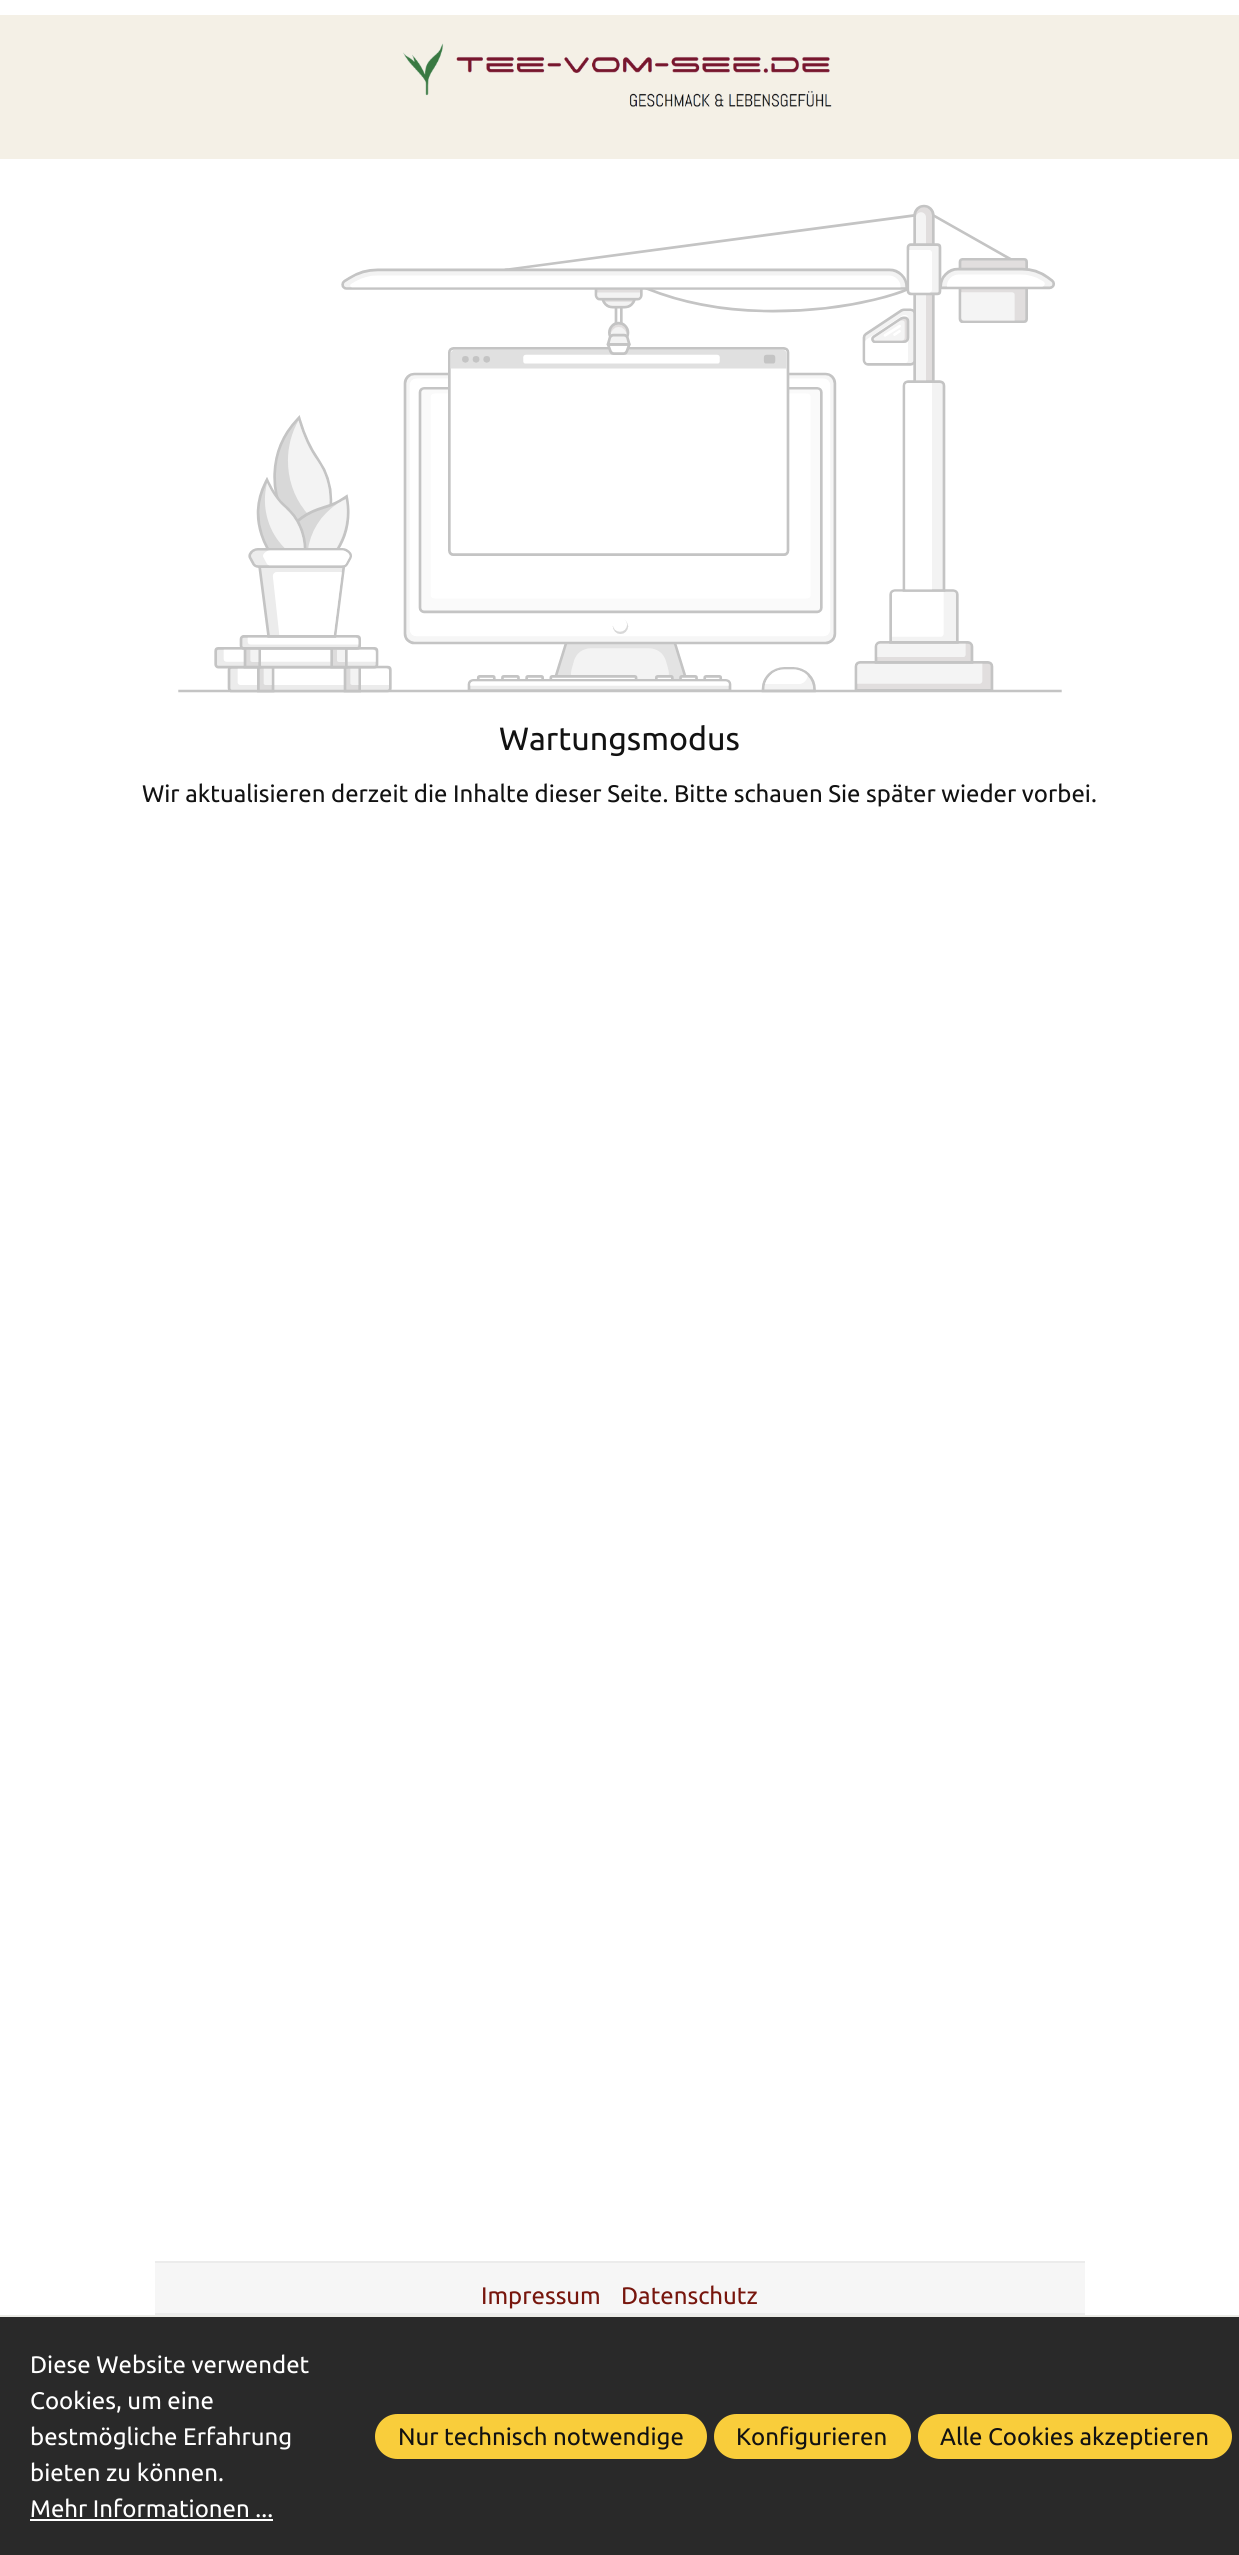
import math
import cairo

surface = cairo.ImageSurface(cairo.FORMAT_RGB24, 1239, 2555)
ctx = cairo.Context(surface)
options = cairo.FontOptions()
options.set_hint_metrics(cairo.HINT_METRICS_OFF)
options.set_hint_style(cairo.HINT_STYLE_NONE)
ctx.set_font_options(options)
ctx.set_miter_limit(4)


def round_rect(x, y, w, h, r):
    ctx.new_sub_path()
    for i, (u, v) in enumerate([(x + w - r, y + h - r), (x + r, y + h - r), (x + r, y + r), (x + w - r, y + r)]):
        ctx.arc(u, v, r, i * math.pi / 2, (i + 1) * math.pi / 2)
    ctx.close_path()


def picture(path, x, y, w, h):
    ctx.save()
    ctx.set_source_surface(cairo.ImageSurface.create_from_png(path), x, y)
    ctx.rectangle(x, y, w, h)
    ctx.fill()
    ctx.restore()


ctx.set_source_rgb(1, 1, 1)
ctx.paint()
ctx.set_source_rgb(0.957, 0.941, 0.902)
ctx.rectangle(0, 15, 1239, 144)
ctx.fill()
picture("img1.png", 403, 43, 429, 64)
picture("img2.png", 178, 204, 884, 489)
ctx.select_font_face("Ubuntu")
ctx.set_font_size(32.25)
ctx.set_source_rgb(0.071, 0.071, 0.071)
ctx.move_to(499, 750)
ctx.show_text("Wartungsmodus")
ctx.set_font_size(24)
ctx.move_to(142, 802)
ctx.show_text("Wir aktualisieren derzeit die Inhalte dieser Seite. Bitte schauen Sie später wieder vorbei.")
ctx.set_source_rgb(0.961, 0.961, 0.961)
ctx.rectangle(155, 2263, 930, 50)
ctx.fill()
ctx.set_source_rgb(0.922, 0.922, 0.922)
ctx.rectangle(155, 2261, 930, 2)
ctx.fill()
ctx.rectangle(155, 2313, 930, 2)
ctx.fill()
ctx.set_source_rgb(0.467, 0.086, 0.051)
ctx.move_to(481, 2304)
ctx.show_text("Impressum")
ctx.move_to(621, 2304)
ctx.show_text("Datenschutz")
ctx.set_source_rgb(0.161, 0.161, 0.161)
ctx.rectangle(0, 2317, 1239, 238)
ctx.fill()
ctx.set_source_rgb(0.925, 0.925, 0.906)
ctx.rectangle(0, 2315, 1239, 2)
ctx.fill()
ctx.set_source_rgb(1, 1, 1)
ctx.move_to(30, 2373)
ctx.show_text("Diese Website verwendet")
ctx.move_to(30, 2409)
ctx.show_text("Cookies, um eine")
ctx.move_to(30, 2445)
ctx.show_text("bestmögliche Erfahrung")
ctx.move_to(30, 2481)
ctx.show_text("bieten zu können.")
ctx.move_to(30, 2517)
ctx.show_text("Mehr Informationen ...")
ctx.rectangle(30, 2519, 243, 2)
ctx.fill()
ctx.set_source_rgb(0.976, 0.804, 0.231)
round_rect(376, 2415, 330, 43, 21.5)
ctx.fill_preserve()
ctx.stroke()
ctx.set_source_rgb(0.071, 0.071, 0.071)
ctx.move_to(398, 2445)
ctx.show_text("Nur technisch notwendige")
ctx.set_source_rgb(0.976, 0.804, 0.231)
round_rect(715, 2415, 195, 43, 21.5)
ctx.fill_preserve()
ctx.stroke()
ctx.set_source_rgb(0.071, 0.071, 0.071)
ctx.move_to(736, 2445)
ctx.show_text("Konfigurieren")
ctx.set_source_rgb(0.976, 0.804, 0.231)
round_rect(919, 2415, 312, 43, 21.5)
ctx.fill_preserve()
ctx.stroke()
ctx.set_source_rgb(0.071, 0.071, 0.071)
ctx.move_to(940, 2445)
ctx.show_text("Alle Cookies akzeptieren")
surface.write_to_png("page.png")
